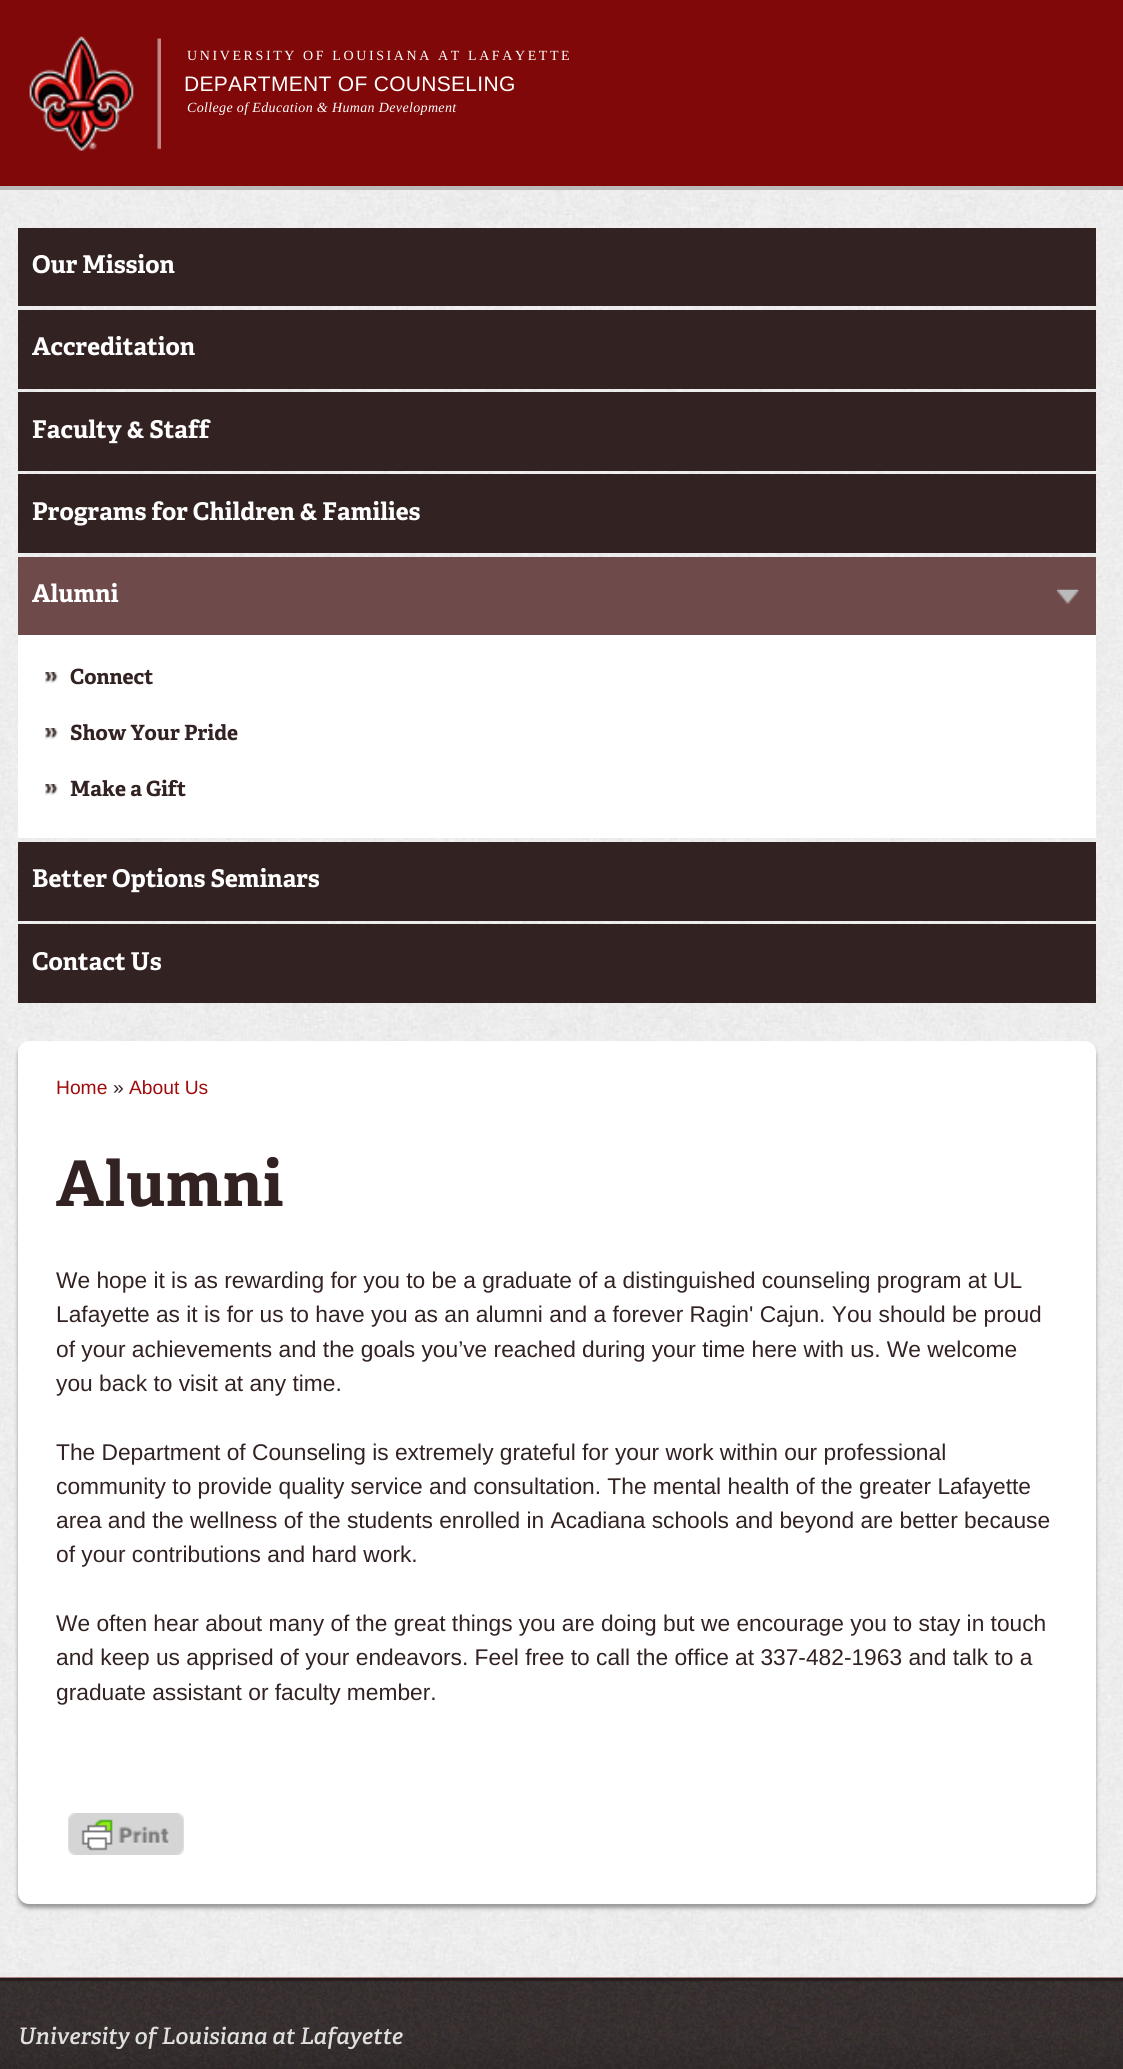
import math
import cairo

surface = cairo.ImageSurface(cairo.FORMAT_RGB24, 1123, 2069)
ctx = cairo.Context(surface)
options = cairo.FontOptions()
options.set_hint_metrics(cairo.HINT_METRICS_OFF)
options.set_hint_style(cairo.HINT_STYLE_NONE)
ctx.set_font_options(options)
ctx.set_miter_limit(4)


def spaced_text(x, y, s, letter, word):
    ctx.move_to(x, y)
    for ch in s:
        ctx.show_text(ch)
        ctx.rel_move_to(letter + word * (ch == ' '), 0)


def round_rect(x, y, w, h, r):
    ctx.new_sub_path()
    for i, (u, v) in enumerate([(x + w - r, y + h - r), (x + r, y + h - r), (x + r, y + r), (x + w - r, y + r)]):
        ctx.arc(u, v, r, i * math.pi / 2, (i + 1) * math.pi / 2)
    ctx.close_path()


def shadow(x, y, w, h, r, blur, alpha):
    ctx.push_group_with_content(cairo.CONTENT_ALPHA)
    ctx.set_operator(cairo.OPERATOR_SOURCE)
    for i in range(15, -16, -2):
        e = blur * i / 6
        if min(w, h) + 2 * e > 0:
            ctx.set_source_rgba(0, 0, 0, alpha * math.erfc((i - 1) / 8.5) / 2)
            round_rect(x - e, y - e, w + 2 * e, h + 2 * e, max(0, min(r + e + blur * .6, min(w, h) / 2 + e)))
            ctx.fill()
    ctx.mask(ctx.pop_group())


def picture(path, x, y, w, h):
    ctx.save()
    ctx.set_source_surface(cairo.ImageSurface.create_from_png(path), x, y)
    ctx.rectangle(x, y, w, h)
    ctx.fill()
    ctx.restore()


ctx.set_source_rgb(1, 1, 1)
ctx.paint()
ctx.set_source_rgb(0.4, 0.067, 0.067)
ctx.rectangle(0, 1977, 1123, 1)
ctx.fill()
picture("img1.png", 0, 190, 1123, 1788)
ctx.set_source_rgb(0.502, 0.035, 0.035)
ctx.rectangle(0, 0, 1123, 186)
ctx.fill()
ctx.set_source_rgb(0.741, 0.725, 0.725)
ctx.rectangle(0, 186, 1123, 4)
ctx.fill()
picture("img2.png", 29, 36, 132, 115)
ctx.select_font_face("Liberation Serif")
ctx.set_font_size(14)
ctx.set_source_rgb(1, 1, 1)
spaced_text(187, 60, "UNIVERSITY OF LOUISIANA AT LAFAYETTE", 2.6, 0)
ctx.select_font_face("Liberation Sans")
ctx.set_font_size(21)
spaced_text(184, 91, "DEPARTMENT OF COUNSELING", 0.3, 0)
ctx.select_font_face("Liberation Serif", cairo.FONT_SLANT_ITALIC)
ctx.set_font_size(14)
spaced_text(187, 112, "College of Education & Human Development", 0.35, 0)
ctx.set_source_rgb(0.2, 0.133, 0.133)
ctx.rectangle(18, 228, 1078, 78)
ctx.fill()
ctx.select_font_face("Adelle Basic", cairo.FONT_SLANT_NORMAL, cairo.FONT_WEIGHT_BOLD)
ctx.set_font_size(24.5)
ctx.set_source_rgb(1, 1, 1)
ctx.move_to(32, 273)
ctx.show_text("Our Mission")
ctx.set_source_rgb(0.2, 0.133, 0.133)
ctx.rectangle(18, 310, 1078, 79)
ctx.fill()
ctx.set_source_rgb(1, 1, 1)
ctx.move_to(32, 355)
ctx.show_text("Accreditation")
ctx.set_source_rgb(0.2, 0.133, 0.133)
ctx.rectangle(18, 392, 1078, 79)
ctx.fill()
ctx.set_source_rgb(1, 1, 1)
ctx.move_to(32, 438)
ctx.show_text("Faculty & Staff")
ctx.set_source_rgb(0.2, 0.133, 0.133)
ctx.rectangle(18, 474, 1078, 79)
ctx.fill()
ctx.set_source_rgb(1, 1, 1)
ctx.move_to(32, 520)
ctx.show_text("Programs for Children & Families")
ctx.set_source_rgb(0.435, 0.29, 0.29)
ctx.rectangle(18, 557, 1078, 78)
ctx.fill()
picture("img3.png", 1057, 589, 23, 15)
ctx.set_source_rgb(1, 1, 1)
ctx.move_to(32, 602)
ctx.show_text("Alumni")
ctx.rectangle(18, 635, 1078, 203)
ctx.fill()
picture("img4.png", 45, 672, 13, 11)
ctx.set_font_size(21)
ctx.set_source_rgb(0.2, 0.133, 0.133)
ctx.move_to(70, 684)
ctx.show_text("Connect")
picture("img4.png", 45, 728, 13, 11)
ctx.move_to(70, 740)
ctx.show_text("Show Your Pride")
picture("img4.png", 45, 784, 13, 11)
ctx.move_to(70, 796)
ctx.show_text("Make a Gift")
ctx.rectangle(18, 842, 1078, 79)
ctx.fill()
ctx.set_font_size(24.5)
ctx.set_source_rgb(1, 1, 1)
ctx.move_to(32, 887)
ctx.show_text("Better Options Seminars")
ctx.set_source_rgb(0.2, 0.133, 0.133)
ctx.rectangle(18, 924, 1078, 79)
ctx.fill()
ctx.set_source_rgb(1, 1, 1)
ctx.move_to(32, 970)
ctx.show_text("Contact Us")
ctx.set_source_rgb(0.6, 0.6, 0.6)
shadow(18, 1045, 1078, 863, 11, 2, 1)
ctx.set_source_rgb(1, 1, 1)
round_rect(18, 1041, 1078, 863, 11)
ctx.fill()
ctx.select_font_face("Liberation Sans")
ctx.set_font_size(19.25)
ctx.set_source_rgb(0.627, 0.043, 0.043)
ctx.move_to(56, 1094)
ctx.show_text("Home")
ctx.set_source_rgb(0.2, 0.133, 0.133)
ctx.move_to(113, 1094)
ctx.show_text("»")
ctx.set_source_rgb(0.627, 0.043, 0.043)
ctx.move_to(129, 1094)
ctx.show_text("About Us")
ctx.select_font_face("Adelle Basic", cairo.FONT_SLANT_NORMAL, cairo.FONT_WEIGHT_BOLD)
ctx.set_font_size(63)
ctx.set_source_rgb(0.2, 0.133, 0.133)
spaced_text(56, 1206, "Alumni", 1, 0)
ctx.select_font_face("Liberation Sans")
ctx.set_font_size(22.75)
ctx.move_to(56, 1288)
ctx.show_text("We hope it is as rewarding for you to be a graduate of a distinguished counseling program at UL")
ctx.move_to(56, 1322)
ctx.show_text("Lafayette as it is for us to have you as an alumni and a forever Ragin' Cajun. You should be proud")
ctx.move_to(56, 1357)
ctx.show_text("of your achievements and the goals you’ve reached during your time here with us. We welcome")
ctx.move_to(56, 1391)
ctx.show_text("you back to visit at any time.")
ctx.move_to(56, 1460)
ctx.show_text("The Department of Counseling is extremely grateful for your work within our professional")
ctx.move_to(56, 1494)
ctx.show_text("community to provide quality service and consultation. The mental health of the greater Lafayette")
ctx.move_to(56, 1528)
ctx.show_text("area and the wellness of the students enrolled in Acadiana schools and beyond are better because")
ctx.move_to(56, 1562)
ctx.show_text("of your contributions and hard work.")
ctx.move_to(56, 1631)
ctx.show_text("We often hear about many of the great things you are doing but we encourage you to stay in touch")
ctx.move_to(56, 1665)
ctx.show_text("and keep us apprised of your endeavors. Feel free to call the office at 337-482-1963 and talk to a")
ctx.move_to(56, 1700)
ctx.show_text("graduate assistant or faculty member.")
picture("img5.png", 68, 1813, 116, 42)
picture("img6.png", 0, 1978, 1123, 91)
ctx.select_font_face("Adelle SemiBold", cairo.FONT_SLANT_ITALIC)
ctx.set_source_rgb(0.875, 0.875, 0.875)
ctx.move_to(18, 2044)
ctx.show_text("University of Louisiana at Lafayette")
surface.write_to_png("page.png")
